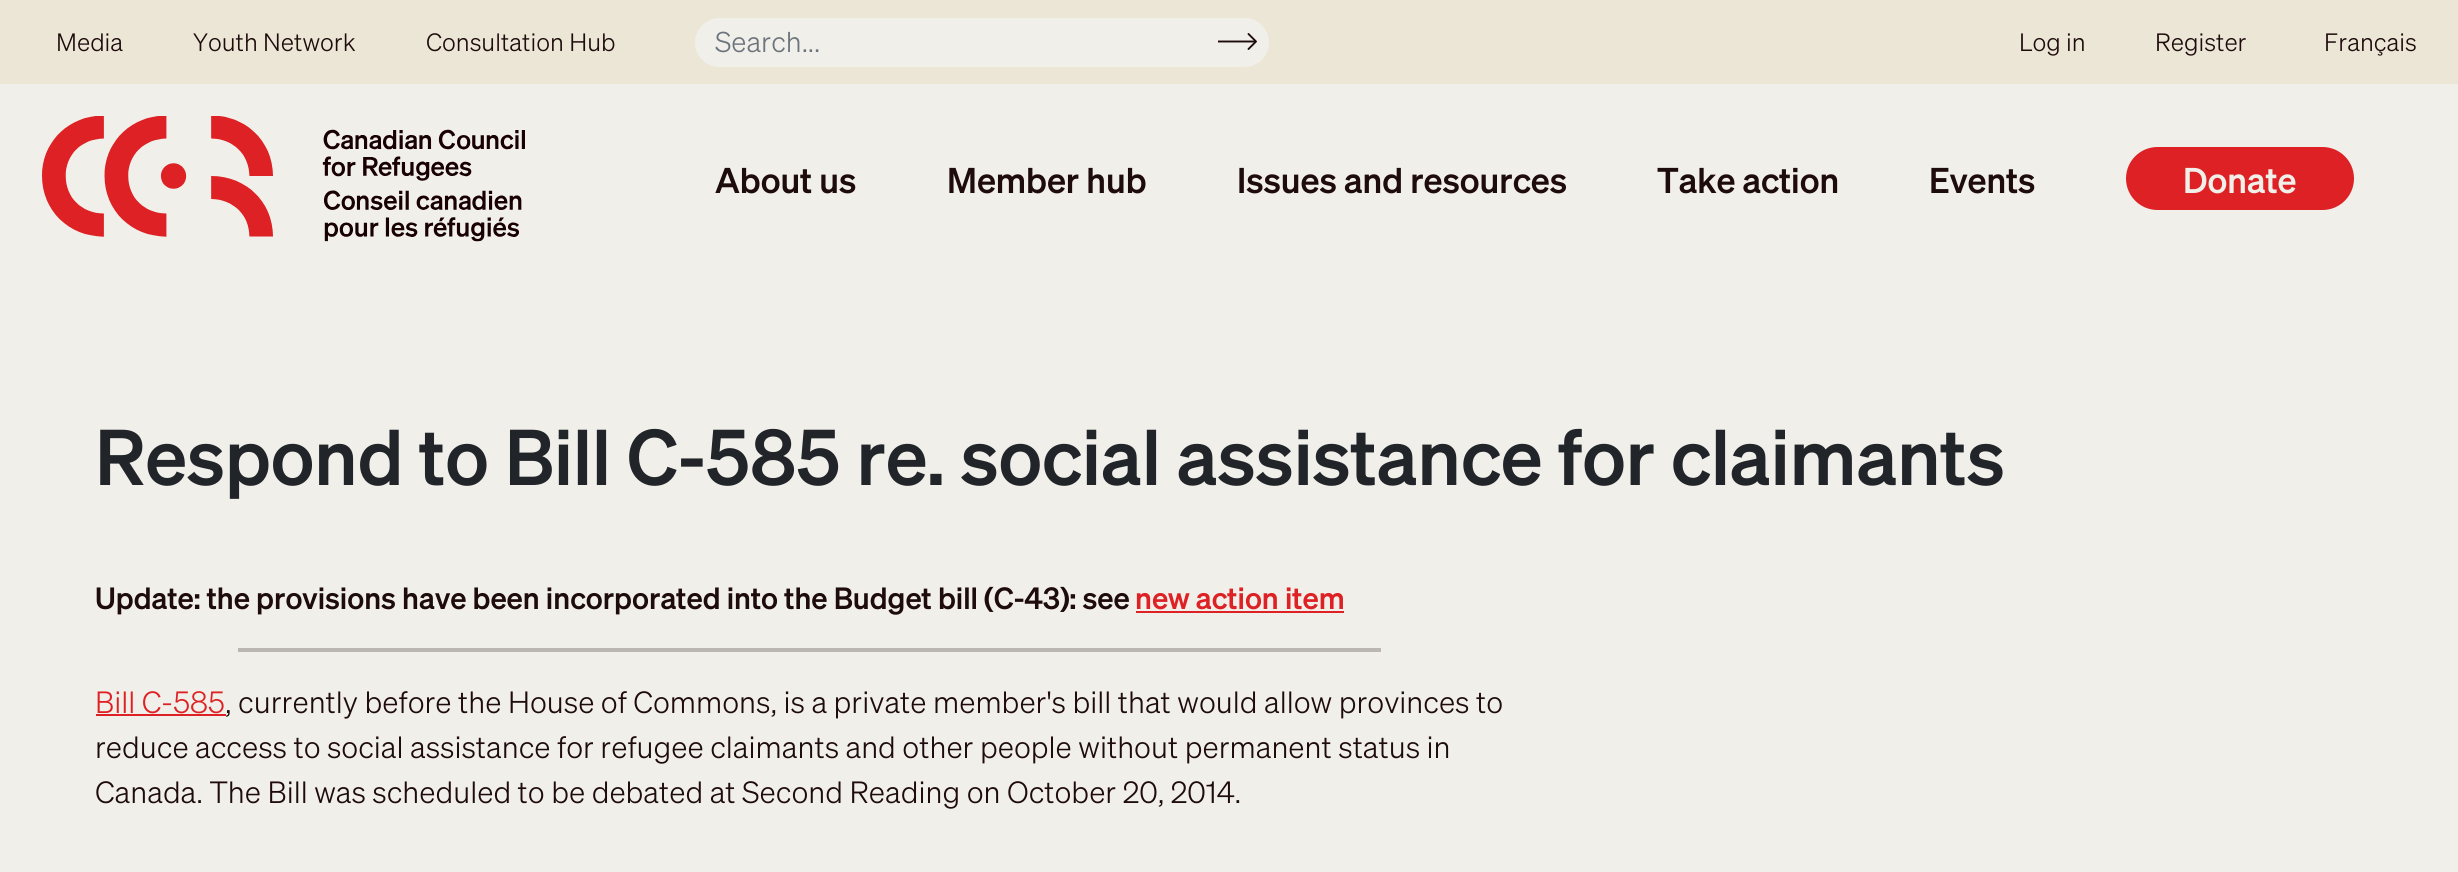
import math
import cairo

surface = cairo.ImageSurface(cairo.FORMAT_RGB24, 2458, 872)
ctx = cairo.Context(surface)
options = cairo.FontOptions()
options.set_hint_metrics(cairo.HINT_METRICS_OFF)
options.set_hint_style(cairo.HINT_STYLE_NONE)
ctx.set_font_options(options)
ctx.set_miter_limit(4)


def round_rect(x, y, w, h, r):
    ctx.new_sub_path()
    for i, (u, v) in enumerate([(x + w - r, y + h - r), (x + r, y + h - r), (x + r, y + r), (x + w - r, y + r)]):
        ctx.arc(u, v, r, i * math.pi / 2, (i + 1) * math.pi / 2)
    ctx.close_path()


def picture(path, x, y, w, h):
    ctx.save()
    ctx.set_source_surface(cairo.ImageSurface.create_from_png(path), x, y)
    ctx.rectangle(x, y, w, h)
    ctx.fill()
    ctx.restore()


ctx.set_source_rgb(0.945, 0.937, 0.914)
ctx.paint()
ctx.set_source_rgb(0.922, 0.902, 0.839)
ctx.rectangle(0, 0, 2458, 84)
ctx.fill()
ctx.select_font_face("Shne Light")
ctx.set_font_size(24.5)
ctx.set_source_rgb(0.118, 0.043, 0.047)
ctx.move_to(56, 51)
ctx.show_text("Media")
ctx.move_to(193, 51)
ctx.show_text("Youth Network")
ctx.move_to(426, 51)
ctx.show_text("Consultation Hub")
ctx.set_source_rgb(0.945, 0.937, 0.914)
round_rect(695, 18, 574, 49, 24.5)
ctx.fill()
ctx.set_font_size(28)
ctx.set_source_rgb(0.424, 0.459, 0.49)
ctx.move_to(715, 52)
ctx.show_text("Search...")
ctx.new_path()
ctx.move_to(1218, 41.5)
ctx.line_to(1256, 41.5)
ctx.set_source_rgb(0.118, 0.043, 0.047)
ctx.set_line_width(1.9)
ctx.stroke()
ctx.new_path()
ctx.move_to(1248.5, 49)
ctx.line_to(1256, 41.5)
ctx.move_to(1248.5, 34)
ctx.line_to(1256, 41.5)
ctx.set_line_cap(cairo.LINE_CAP_ROUND)
ctx.stroke()
ctx.set_font_size(24.5)
ctx.move_to(2019, 51)
ctx.show_text("Log in")
ctx.move_to(2155, 51)
ctx.show_text("Register")
ctx.move_to(2324, 51)
ctx.show_text("Français")
picture("img1.png", 42, 116, 483, 126)
ctx.select_font_face("Shne Medium")
ctx.set_font_size(35)
ctx.move_to(715, 193)
ctx.show_text("About us")
ctx.move_to(947, 193)
ctx.show_text("Member hub")
ctx.move_to(1237, 193)
ctx.show_text("Issues and resources")
ctx.move_to(1657, 193)
ctx.show_text("Take action")
ctx.move_to(1929, 193)
ctx.show_text("Events")
ctx.set_source_rgb(0.867, 0.129, 0.145)
round_rect(2127, 148, 226, 61, 30.5)
ctx.fill_preserve()
ctx.set_line_width(2)
ctx.set_line_cap(cairo.LINE_CAP_BUTT)
ctx.stroke()
ctx.set_source_rgb(0.945, 0.937, 0.914)
ctx.move_to(2183, 193)
ctx.show_text("Donate")
ctx.set_font_size(77)
ctx.set_source_rgb(0.129, 0.145, 0.161)
ctx.move_to(95, 485)
ctx.show_text("Respond to Bill C-585 re. social assistance for claimants")
ctx.set_font_size(30)
ctx.set_source_rgb(0.118, 0.043, 0.047)
ctx.move_to(95, 609)
ctx.show_text("Update: the provisions have been incorporated into the Budget bill (C-43): see")
ctx.set_source_rgb(0.867, 0.129, 0.145)
ctx.move_to(1135, 609)
ctx.show_text("new action item")
ctx.rectangle(1136, 611, 208, 2)
ctx.fill()
ctx.set_source_rgb(0.737, 0.714, 0.698)
ctx.rectangle(238, 648, 1143, 4)
ctx.fill()
ctx.select_font_face("Shne Light")
ctx.set_source_rgb(0.867, 0.129, 0.145)
ctx.move_to(95, 713)
ctx.show_text("Bill C-585")
ctx.rectangle(96, 714, 130, 2)
ctx.fill()
ctx.set_source_rgb(0.118, 0.043, 0.047)
ctx.move_to(225, 713)
ctx.show_text(", currently before the House of Commons, is a private member's bill that would allow provinces to")
ctx.move_to(95, 758)
ctx.show_text("reduce access to social assistance for refugee claimants and other people without permanent status in")
ctx.move_to(95, 803)
ctx.show_text("Canada. The Bill was scheduled to be debated at Second Reading on October 20, 2014.")
surface.write_to_png("page.png")
